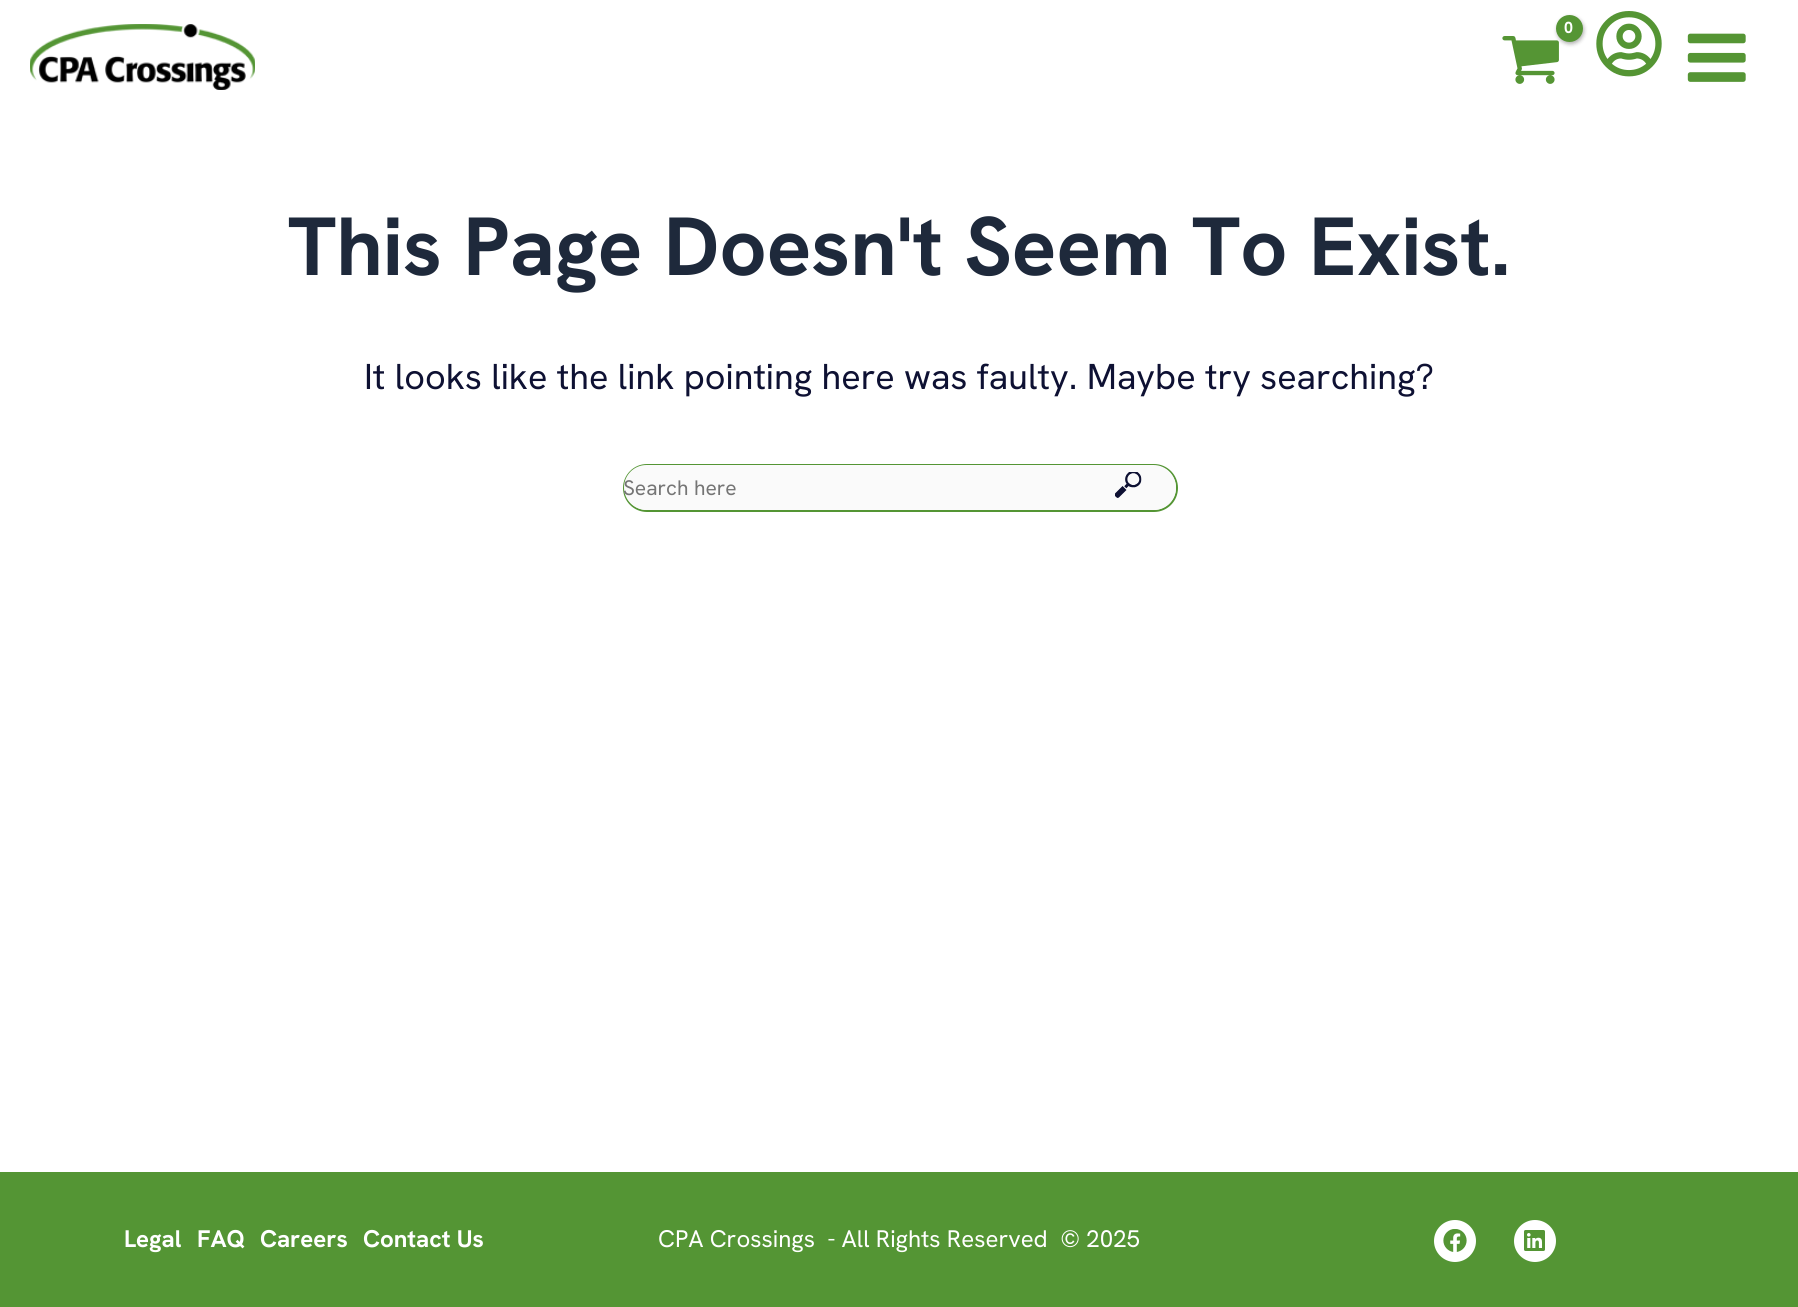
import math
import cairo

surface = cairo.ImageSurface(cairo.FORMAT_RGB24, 1798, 1307)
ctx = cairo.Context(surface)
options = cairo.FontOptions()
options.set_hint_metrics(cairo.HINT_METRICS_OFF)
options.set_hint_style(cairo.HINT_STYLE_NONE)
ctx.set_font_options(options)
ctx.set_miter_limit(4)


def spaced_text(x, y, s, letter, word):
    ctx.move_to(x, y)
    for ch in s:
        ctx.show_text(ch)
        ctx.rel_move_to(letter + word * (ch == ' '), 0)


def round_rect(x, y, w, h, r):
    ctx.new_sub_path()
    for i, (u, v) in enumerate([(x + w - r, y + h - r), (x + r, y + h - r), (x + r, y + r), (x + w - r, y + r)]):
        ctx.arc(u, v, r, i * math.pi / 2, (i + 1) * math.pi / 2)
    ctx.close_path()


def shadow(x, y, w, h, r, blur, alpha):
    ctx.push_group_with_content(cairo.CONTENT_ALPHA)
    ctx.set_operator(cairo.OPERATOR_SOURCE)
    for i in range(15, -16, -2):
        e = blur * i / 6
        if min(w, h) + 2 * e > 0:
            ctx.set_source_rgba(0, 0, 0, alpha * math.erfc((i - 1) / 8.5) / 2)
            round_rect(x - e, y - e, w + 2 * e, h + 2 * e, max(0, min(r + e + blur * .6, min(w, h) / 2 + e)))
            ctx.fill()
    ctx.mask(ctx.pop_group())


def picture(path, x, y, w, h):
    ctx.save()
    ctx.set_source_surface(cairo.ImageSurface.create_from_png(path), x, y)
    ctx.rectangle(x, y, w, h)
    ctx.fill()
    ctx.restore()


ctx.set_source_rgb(1, 1, 1)
ctx.paint()
picture("img1.png", 30, 24, 225, 66)
picture("img2.png", 1502, 36, 57, 48)
ctx.set_source_rgb(0, 0, 0)
shadow(1557, 17, 27, 27, 13.5, 2, 0.3)
ctx.set_source_rgb(0.333, 0.584, 0.204)
ctx.arc(1569.5, 28.5, 13.5, 0, 2 * math.pi)
ctx.fill()
ctx.select_font_face("Hanken Grotesk", cairo.FONT_SLANT_NORMAL, cairo.FONT_WEIGHT_BOLD)
ctx.set_font_size(16)
ctx.set_source_rgb(1, 1, 1)
spaced_text(1564, 33, "0", -1, 0)
picture("img3.png", 1596, 11, 66, 66)
picture("img4.png", 1687, 33, 59, 49)
ctx.set_font_size(82.5)
ctx.set_source_rgb(0.118, 0.161, 0.231)
ctx.move_to(288, 275)
ctx.show_text("This Page Doesn't Seem To Exist.")
ctx.select_font_face("Hanken Grotesk")
ctx.set_font_size(36)
ctx.set_source_rgb(0.055, 0.067, 0.2)
ctx.move_to(364, 389)
ctx.show_text("It looks like the link pointing here was faulty. Maybe try searching?")
round_rect(624, 465, 553, 46, 23)
ctx.set_source_rgb(0.329, 0.584, 0.204)
ctx.stroke()
ctx.set_source_rgb(0.98, 0.98, 0.98)
round_rect(624, 465, 552, 45, 22.5)
ctx.fill()
ctx.set_font_size(21)
ctx.set_source_rgb(0.459, 0.459, 0.459)
ctx.move_to(623, 495)
ctx.show_text("Search here")
picture("img5.png", 1115, 472, 27, 26)
ctx.set_source_rgb(0.329, 0.584, 0.204)
ctx.rectangle(0, 1172, 1798, 135)
ctx.fill()
ctx.select_font_face("Hanken Grotesk", cairo.FONT_SLANT_NORMAL, cairo.FONT_WEIGHT_BOLD)
ctx.set_font_size(24)
ctx.set_source_rgb(1, 1, 1)
ctx.move_to(124, 1247)
ctx.show_text("Legal")
ctx.move_to(197, 1247)
ctx.show_text("FAQ")
ctx.move_to(260, 1247)
ctx.show_text("Careers")
ctx.move_to(363, 1247)
ctx.show_text("Contact Us")
ctx.select_font_face("Hanken Grotesk")
ctx.move_to(658, 1247)
ctx.show_text("CPA Crossings  - All Rights Reserved  © 2025")
ctx.new_path()
ctx.arc(1455, 1241, 21, 0, 2 * math.pi)
ctx.fill()
picture("img6.png", 1443, 1229, 24, 23)
ctx.arc(1535, 1241, 21, 0, 2 * math.pi)
ctx.fill()
picture("img7.png", 1524, 1230, 21, 21)
surface.write_to_png("page.png")
